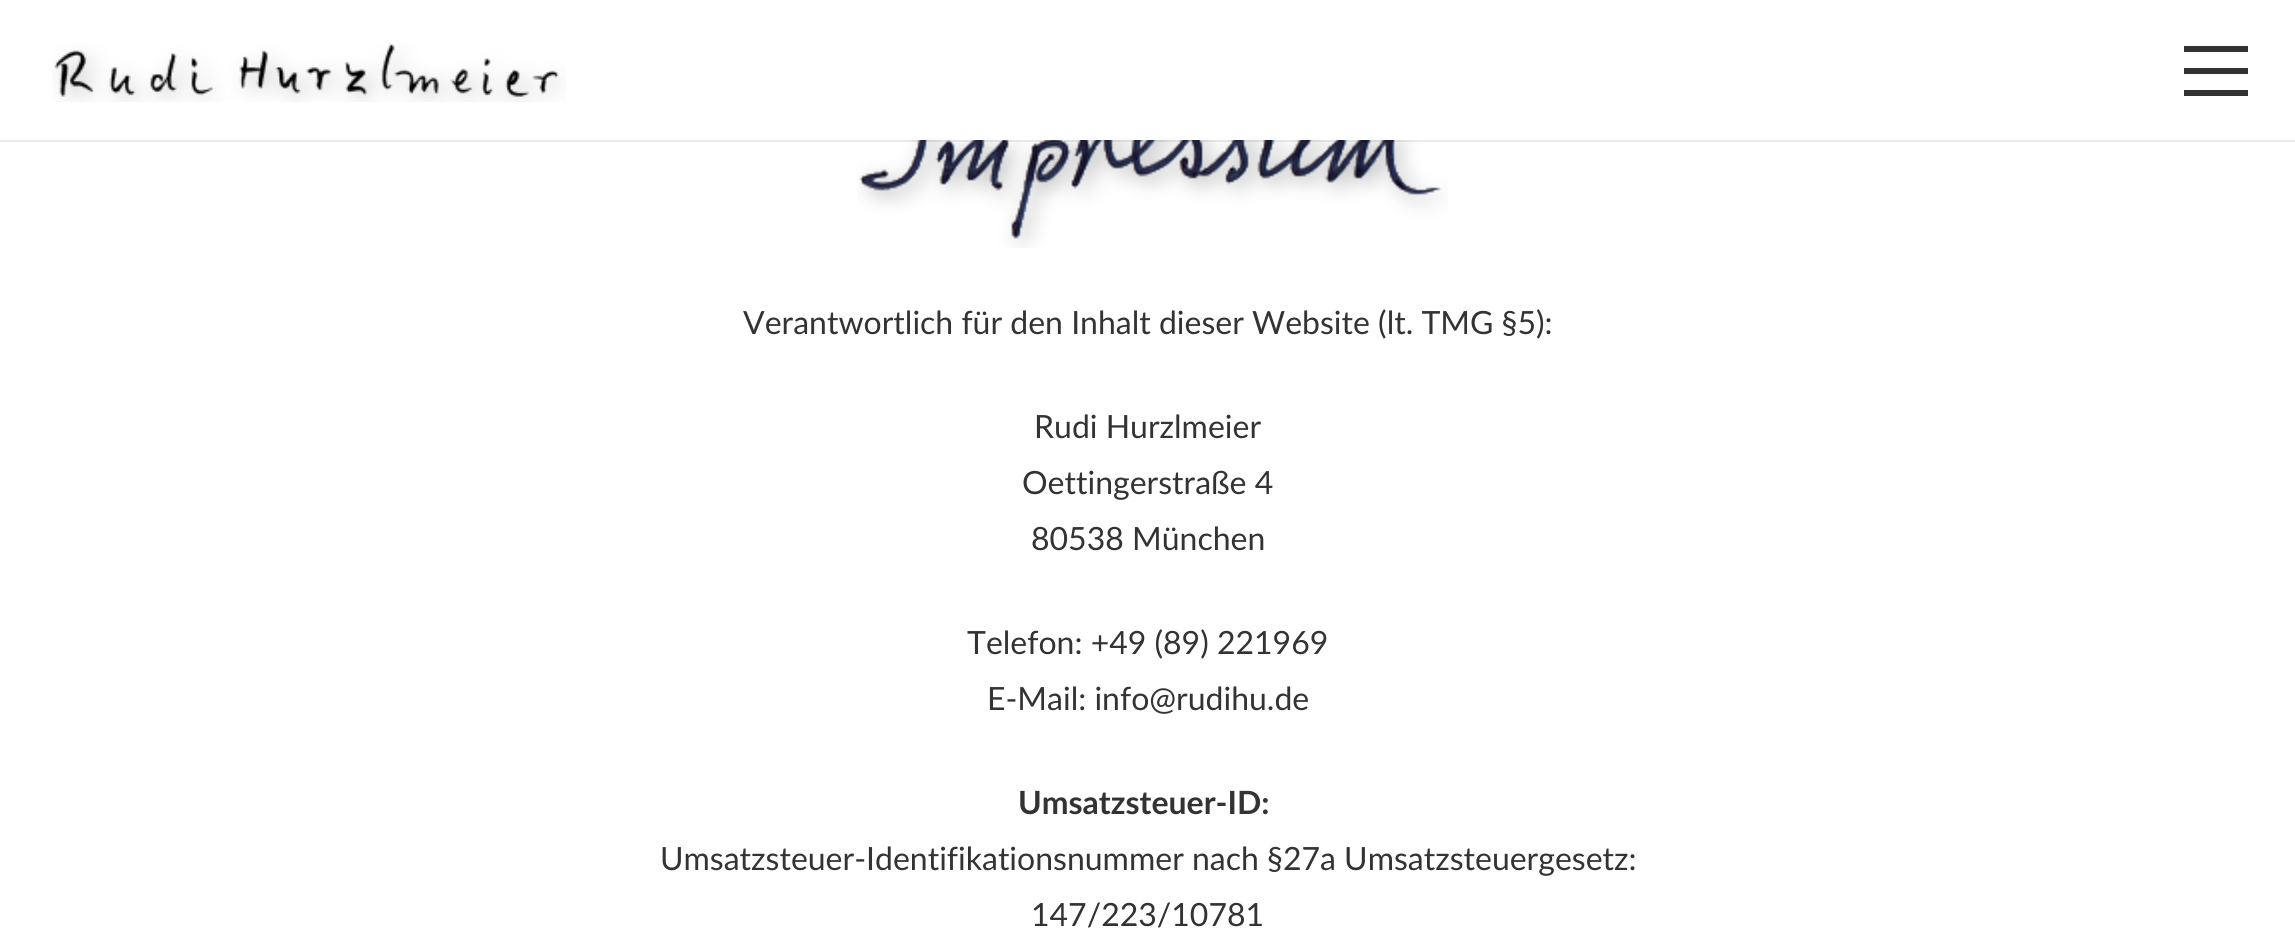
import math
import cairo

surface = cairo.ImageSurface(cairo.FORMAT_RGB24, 2295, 952)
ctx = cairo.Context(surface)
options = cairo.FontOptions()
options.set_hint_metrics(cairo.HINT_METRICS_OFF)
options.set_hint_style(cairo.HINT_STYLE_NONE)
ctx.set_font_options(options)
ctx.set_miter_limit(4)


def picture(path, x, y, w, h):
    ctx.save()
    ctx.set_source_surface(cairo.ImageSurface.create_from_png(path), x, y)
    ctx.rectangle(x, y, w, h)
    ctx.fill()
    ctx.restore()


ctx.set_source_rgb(1, 1, 1)
ctx.paint()
picture("img2.png", 857, 140, 591, 108)
ctx.set_source_rgba(0, 0, 0, 0.08)
ctx.rectangle(0, 140, 2295, 2)
ctx.fill()
picture("img1.png", 52, 43, 514, 59)
ctx.set_source_rgb(0.2, 0.2, 0.2)
ctx.rectangle(2184, 68, 64, 6)
ctx.fill()
ctx.rectangle(2184, 46, 64, 6)
ctx.fill()
ctx.rectangle(2184, 90, 64, 6)
ctx.fill()
ctx.select_font_face("Lato")
ctx.set_font_size(32)
ctx.move_to(743, 334)
ctx.show_text("Verantwortlich für den Inhalt dieser Website (lt. TMG §5):")
ctx.move_to(1034, 438)
ctx.show_text("Rudi Hurzlmeier")
ctx.move_to(1022, 494)
ctx.show_text("Oettingerstraße 4")
ctx.move_to(1031, 550)
ctx.show_text("80538 München")
ctx.move_to(967, 654)
ctx.show_text("Telefon: +49 (89) 221969")
ctx.move_to(987, 710)
ctx.show_text("E-Mail: info@rudihu.de")
ctx.select_font_face("Lato", cairo.FONT_SLANT_NORMAL, cairo.FONT_WEIGHT_BOLD)
ctx.move_to(1018, 814)
ctx.show_text("Umsatzsteuer-ID:")
ctx.select_font_face("Lato")
ctx.move_to(660, 870)
ctx.show_text("Umsatzsteuer-Identifikationsnummer nach §27a Umsatzsteuergesetz:")
ctx.move_to(1031, 926)
ctx.show_text("147/223/10781")
surface.write_to_png("page.png")
